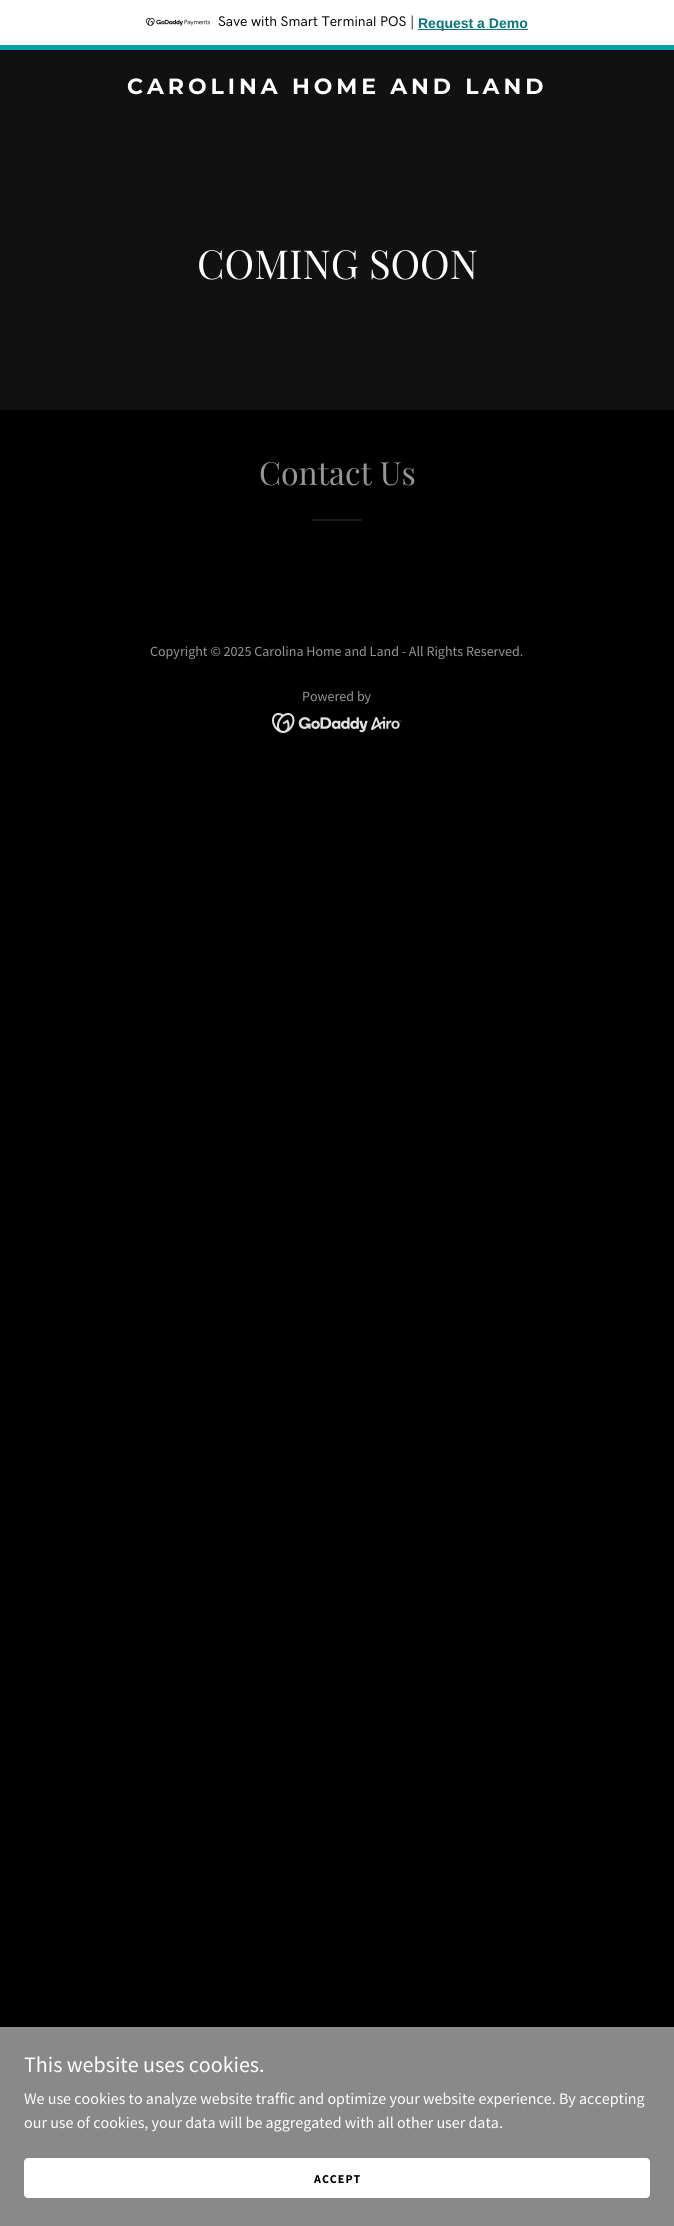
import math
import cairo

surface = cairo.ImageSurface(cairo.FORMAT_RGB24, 674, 2226)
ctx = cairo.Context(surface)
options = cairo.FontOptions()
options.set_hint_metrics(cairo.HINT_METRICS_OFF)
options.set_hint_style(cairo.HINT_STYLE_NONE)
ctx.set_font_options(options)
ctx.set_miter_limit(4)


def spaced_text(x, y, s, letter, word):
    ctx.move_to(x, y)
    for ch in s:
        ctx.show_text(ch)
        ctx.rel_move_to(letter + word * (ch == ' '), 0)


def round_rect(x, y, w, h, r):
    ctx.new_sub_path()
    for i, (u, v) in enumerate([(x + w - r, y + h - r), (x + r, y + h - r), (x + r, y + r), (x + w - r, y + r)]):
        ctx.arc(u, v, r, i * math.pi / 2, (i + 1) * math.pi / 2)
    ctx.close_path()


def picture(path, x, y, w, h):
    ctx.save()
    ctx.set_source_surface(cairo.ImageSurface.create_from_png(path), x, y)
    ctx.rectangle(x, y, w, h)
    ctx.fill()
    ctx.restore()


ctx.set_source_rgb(0, 0, 0)
ctx.paint()
ctx.set_source_rgb(1, 1, 1)
ctx.rectangle(0, 0, 674, 45)
ctx.fill()
ctx.set_source_rgb(0, 0.643, 0.651)
ctx.rectangle(0, 45, 674, 5)
ctx.fill()
picture("img1.png", 146, 18, 64, 8)
ctx.select_font_face("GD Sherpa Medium")
ctx.set_font_size(14)
ctx.set_source_rgb(0, 0, 0)
ctx.move_to(218, 26)
ctx.show_text("Save with Smart Terminal POS |")
ctx.set_source_rgb(0.035, 0.459, 0.478)
ctx.rectangle(418, 29, 110, 1)
ctx.fill()
ctx.select_font_face("Liberation Sans", cairo.FONT_SLANT_NORMAL, cairo.FONT_WEIGHT_BOLD)
ctx.move_to(418, 28)
ctx.show_text("Request a Demo")
ctx.set_source_rgb(0.067, 0.067, 0.067)
ctx.rectangle(0, 50, 674, 360)
ctx.fill()
ctx.select_font_face("Montserrat", cairo.FONT_SLANT_NORMAL, cairo.FONT_WEIGHT_BOLD)
ctx.set_font_size(22)
ctx.set_source_rgb(1, 1, 1)
spaced_text(127, 94, "CAROLINA HOME AND LAND", 4, 0)
ctx.select_font_face("Playfair Display")
ctx.set_font_size(40)
ctx.move_to(197, 279)
ctx.show_text("COMING SOON")
ctx.set_font_size(32)
ctx.set_source_rgb(0.588, 0.588, 0.588)
ctx.move_to(259, 485)
ctx.show_text("Contact Us")
ctx.set_source_rgb(0.106, 0.106, 0.106)
ctx.rectangle(312, 519, 50, 2)
ctx.fill()
ctx.select_font_face("Source Sans Pro")
ctx.set_font_size(14)
ctx.set_source_rgb(0.588, 0.588, 0.588)
ctx.move_to(150, 656)
ctx.show_text("Copyright © 2025 Carolina Home and Land - All Rights Reserved.")
ctx.move_to(302, 701)
ctx.show_text("Powered by")
picture("img2.png", 272, 713, 130, 20)
ctx.set_source_rgb(0.537, 0.537, 0.537)
ctx.rectangle(0, 2027, 674, 199)
ctx.fill()
ctx.set_font_size(22)
ctx.set_source_rgb(1, 1, 1)
ctx.move_to(24, 2072)
ctx.show_text("This website uses cookies.")
ctx.set_font_size(16)
ctx.move_to(24, 2104)
ctx.show_text("We use cookies to analyze website traffic and optimize your website experience. By accepting")
ctx.move_to(24, 2128)
ctx.show_text("our use of cookies, your data will be aggregated with all other user data.")
round_rect(24, 2158, 626, 40, 4)
ctx.fill()
ctx.select_font_face("Source Sans Pro", cairo.FONT_SLANT_NORMAL, cairo.FONT_WEIGHT_BOLD)
ctx.set_font_size(12)
ctx.set_source_rgb(0, 0, 0)
spaced_text(314, 2183, "ACCEPT", 1, 0)
surface.write_to_png("page.png")
